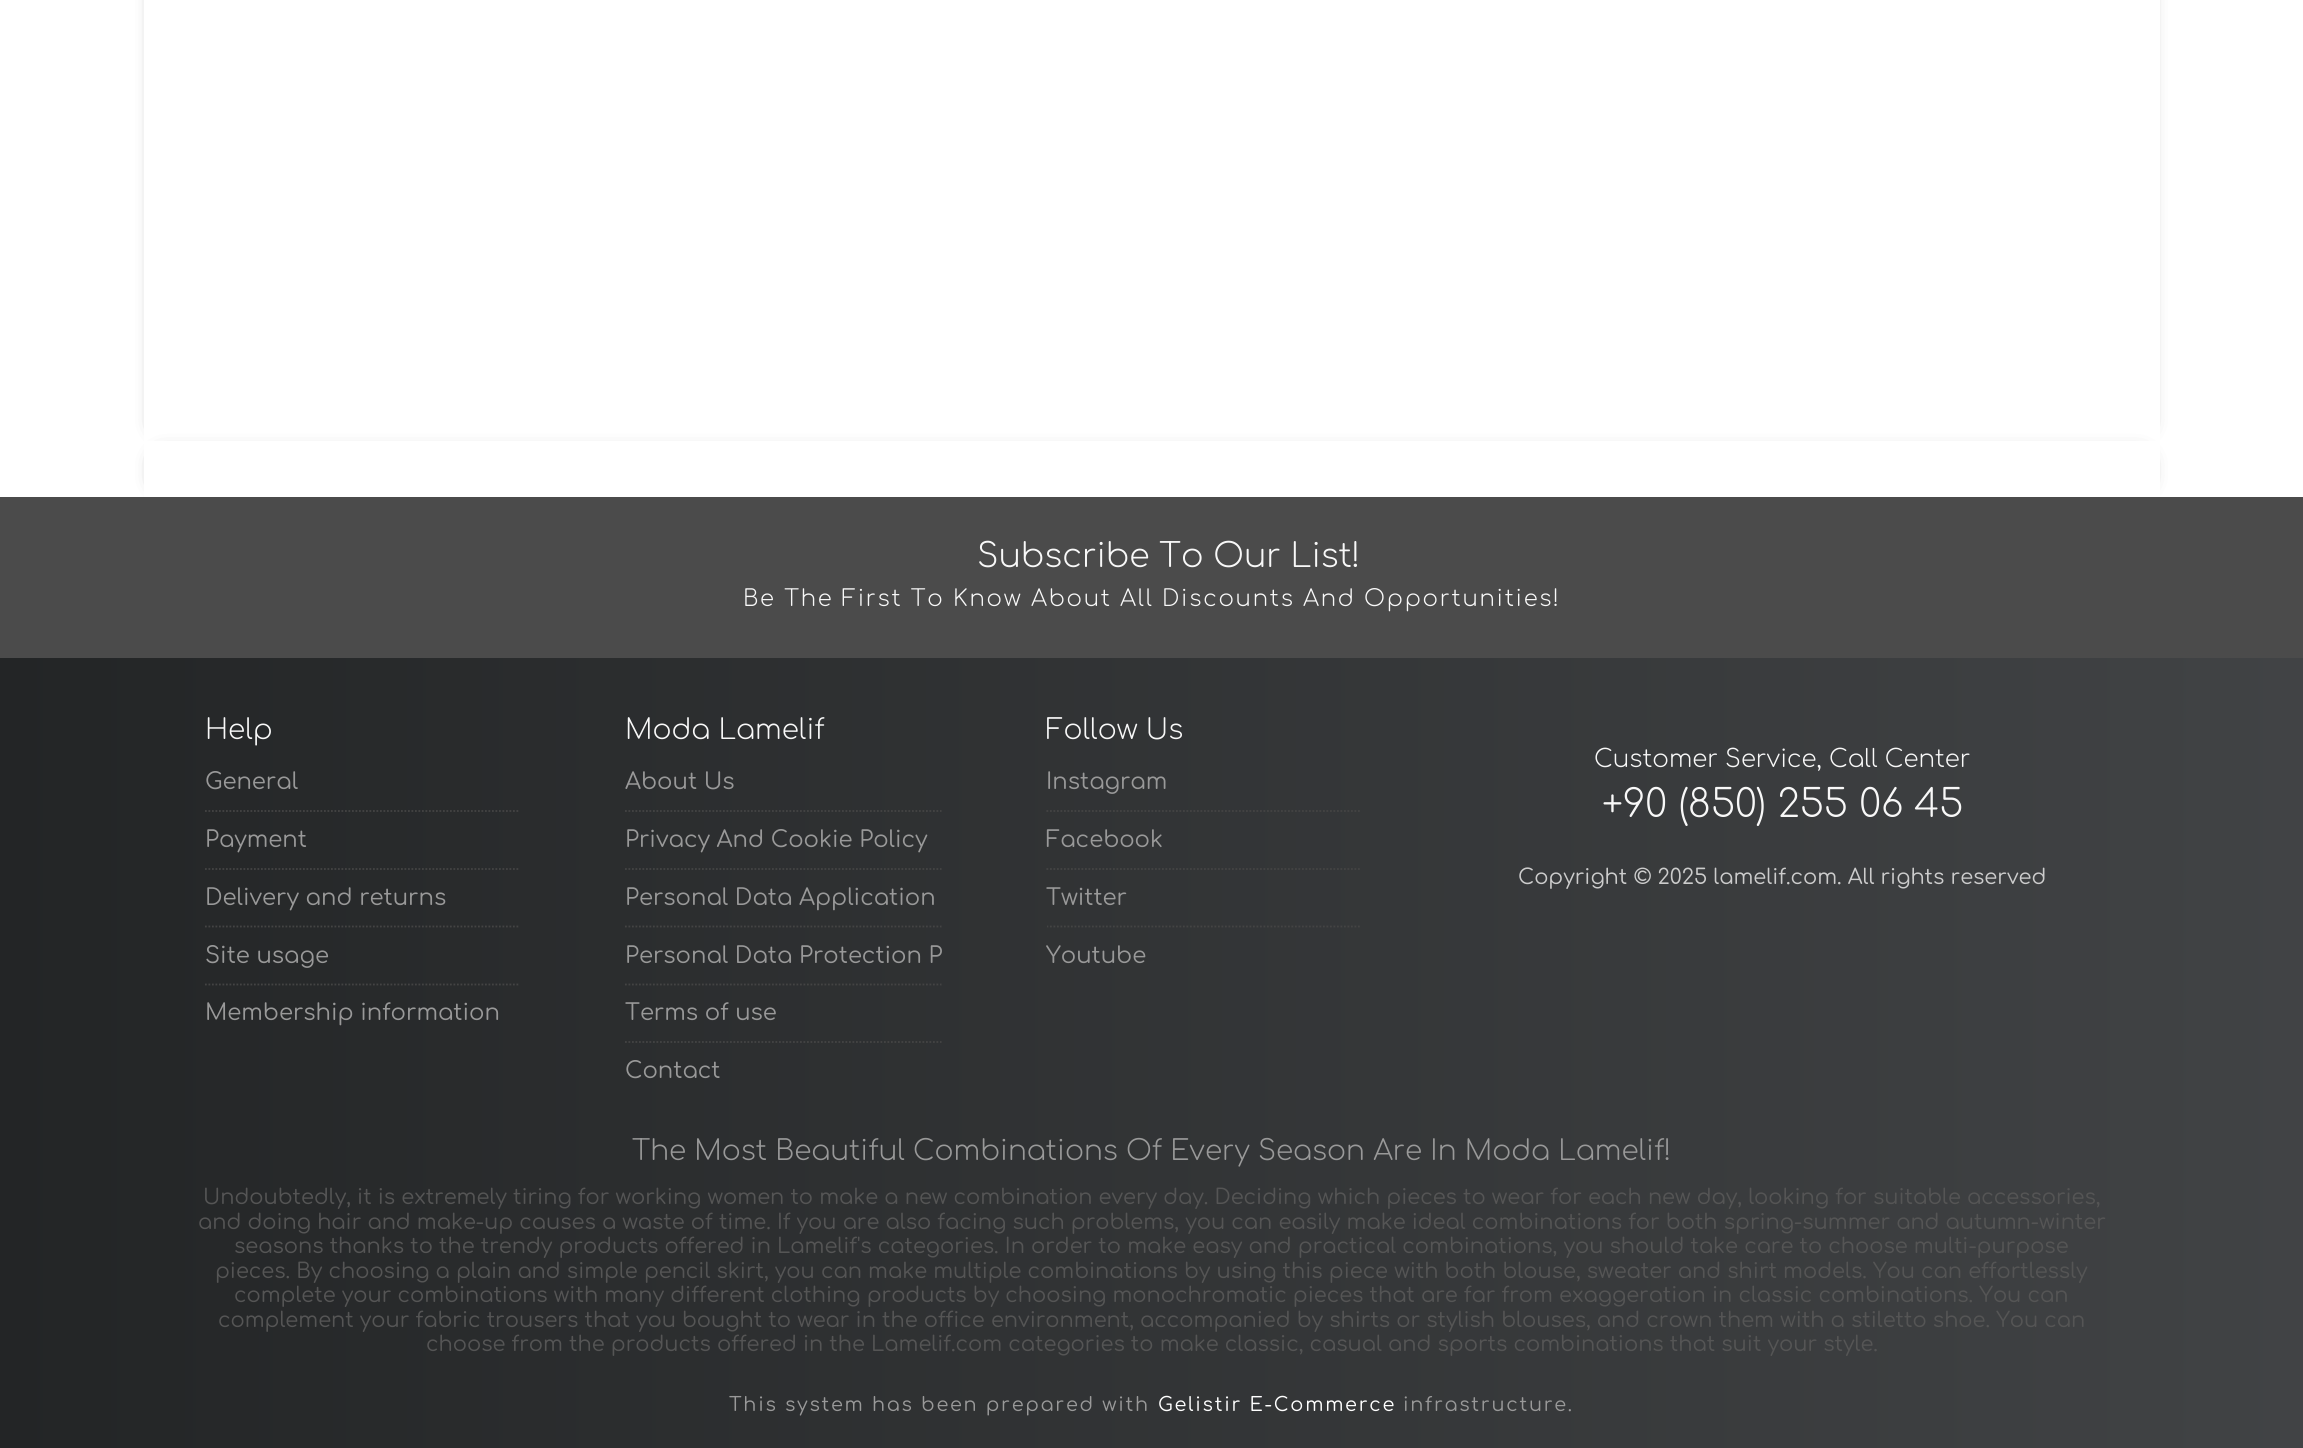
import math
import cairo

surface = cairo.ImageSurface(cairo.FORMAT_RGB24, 2303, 1448)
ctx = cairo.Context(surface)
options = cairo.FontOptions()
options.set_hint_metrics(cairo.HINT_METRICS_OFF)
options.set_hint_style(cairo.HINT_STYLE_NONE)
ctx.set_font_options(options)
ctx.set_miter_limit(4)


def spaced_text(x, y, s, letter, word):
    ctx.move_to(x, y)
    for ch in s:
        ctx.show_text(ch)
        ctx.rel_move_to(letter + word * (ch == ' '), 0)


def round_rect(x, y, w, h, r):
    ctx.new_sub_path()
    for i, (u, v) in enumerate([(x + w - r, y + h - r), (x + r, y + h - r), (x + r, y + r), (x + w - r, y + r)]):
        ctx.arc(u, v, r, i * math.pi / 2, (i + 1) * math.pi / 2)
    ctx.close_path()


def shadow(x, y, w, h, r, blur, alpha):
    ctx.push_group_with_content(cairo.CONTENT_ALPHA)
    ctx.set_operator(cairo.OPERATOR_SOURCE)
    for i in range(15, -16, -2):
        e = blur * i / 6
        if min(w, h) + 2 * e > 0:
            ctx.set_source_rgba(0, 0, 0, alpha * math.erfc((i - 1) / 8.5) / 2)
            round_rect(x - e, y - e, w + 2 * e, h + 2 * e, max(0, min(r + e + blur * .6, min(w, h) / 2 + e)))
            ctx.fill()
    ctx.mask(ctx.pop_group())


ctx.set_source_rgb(1, 1, 1)
ctx.paint()
ctx.set_source_rgb(0, 0, 0)
shadow(161, -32, 1981, 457, 0, 10.5, 1)
ctx.set_source_rgb(1, 1, 1)
ctx.rectangle(144, 0, 2016, 441)
ctx.fill()
ctx.set_source_rgb(0, 0, 0)
shadow(161, 460, 1981, 21, 0, 10.5, 1)
ctx.set_source_rgb(1, 1, 1)
ctx.rectangle(144, 441, 2016, 56)
ctx.fill()
gradient = cairo.LinearGradient(0, 973, 2303, 973)
gradient.add_color_stop_rgba(0, 0.137, 0.145, 0.149, 1)
gradient.add_color_stop_rgba(1, 0.255, 0.263, 0.271, 1)
ctx.set_source(gradient)
ctx.rectangle(0, 658, 2303, 790)
ctx.fill()
ctx.set_source_rgb(0.294, 0.294, 0.294)
ctx.rectangle(0, 497, 2303, 161)
ctx.fill()
ctx.select_font_face("Comfortaa Light")
ctx.set_font_size(33.25)
ctx.set_source_rgb(0.969, 0.969, 0.969)
ctx.move_to(977, 567)
ctx.show_text("Subscribe To Our List!")
ctx.set_font_size(22.75)
spaced_text(743, 606, "Be The First To Know About All Discounts And Opportunities!", 1.75, 0)
ctx.set_font_size(28)
ctx.move_to(205, 739)
ctx.show_text("Help")
ctx.new_path()
ctx.move_to(205, 811)
ctx.line_to(520, 811)
ctx.set_source_rgb(0.267, 0.267, 0.267)
ctx.set_line_width(1.8)
ctx.set_dash([1.75, 1.75])
ctx.stroke()
ctx.select_font_face("Comfortaa")
ctx.set_font_size(22.75)
ctx.set_source_rgb(0.6, 0.6, 0.6)
ctx.move_to(205, 789)
ctx.show_text("General")
ctx.new_path()
ctx.move_to(205, 869)
ctx.line_to(520, 869)
ctx.set_source_rgb(0.267, 0.267, 0.267)
ctx.stroke()
ctx.set_source_rgb(0.6, 0.6, 0.6)
ctx.move_to(205, 847)
ctx.show_text("Payment")
ctx.new_path()
ctx.move_to(205, 926.5)
ctx.line_to(520, 926.5)
ctx.set_source_rgb(0.267, 0.267, 0.267)
ctx.stroke()
ctx.set_source_rgb(0.6, 0.6, 0.6)
ctx.move_to(205, 905)
ctx.show_text("Delivery and returns")
ctx.new_path()
ctx.move_to(205, 984.5)
ctx.line_to(520, 984.5)
ctx.set_source_rgb(0.267, 0.267, 0.267)
ctx.stroke()
ctx.set_source_rgb(0.6, 0.6, 0.6)
ctx.move_to(205, 963)
ctx.show_text("Site usage")
ctx.move_to(205, 1020)
ctx.show_text("Membership information")
ctx.select_font_face("Comfortaa Light")
ctx.set_font_size(28)
ctx.set_source_rgb(0.969, 0.969, 0.969)
ctx.move_to(625, 739)
ctx.show_text("Moda Lamelif")
ctx.new_path()
ctx.move_to(625, 811)
ctx.line_to(941.5, 811)
ctx.set_source_rgb(0.267, 0.267, 0.267)
ctx.stroke()
ctx.select_font_face("Comfortaa")
ctx.set_font_size(22.75)
ctx.set_source_rgb(0.6, 0.6, 0.6)
ctx.move_to(625, 789)
ctx.show_text("About Us")
ctx.new_path()
ctx.move_to(625, 869)
ctx.line_to(941.5, 869)
ctx.set_source_rgb(0.267, 0.267, 0.267)
ctx.stroke()
ctx.set_source_rgb(0.6, 0.6, 0.6)
ctx.move_to(625, 847)
ctx.show_text("Privacy And Cookie Policy")
ctx.new_path()
ctx.move_to(625, 926.5)
ctx.line_to(941.5, 926.5)
ctx.set_source_rgb(0.267, 0.267, 0.267)
ctx.stroke()
ctx.set_source_rgb(0.6, 0.6, 0.6)
ctx.move_to(625, 905)
ctx.show_text("Personal Data Application")
ctx.new_path()
ctx.move_to(625, 984.5)
ctx.line_to(941.5, 984.5)
ctx.set_source_rgb(0.267, 0.267, 0.267)
ctx.stroke()
ctx.save()
ctx.rectangle(625, 928, 317, 56)
ctx.clip()
ctx.set_source_rgb(0.6, 0.6, 0.6)
ctx.move_to(625, 963)
ctx.show_text("Personal Data Protection P")
ctx.restore()
ctx.new_path()
ctx.move_to(625, 1042)
ctx.line_to(941.5, 1042)
ctx.stroke()
ctx.set_source_rgb(0.6, 0.6, 0.6)
ctx.move_to(625, 1020)
ctx.show_text("Terms of use")
ctx.move_to(625, 1078)
ctx.show_text("Contact")
ctx.select_font_face("Comfortaa Light")
ctx.set_font_size(28)
ctx.set_source_rgb(0.969, 0.969, 0.969)
ctx.move_to(1046, 739)
ctx.show_text("Follow Us")
ctx.new_path()
ctx.move_to(1046.5, 811)
ctx.line_to(1361.5, 811)
ctx.set_source_rgb(0.267, 0.267, 0.267)
ctx.stroke()
ctx.select_font_face("Comfortaa")
ctx.set_font_size(22.75)
ctx.set_source_rgb(0.6, 0.6, 0.6)
ctx.move_to(1046, 789)
ctx.show_text("Instagram")
ctx.new_path()
ctx.move_to(1046.5, 869)
ctx.line_to(1361.5, 869)
ctx.set_source_rgb(0.267, 0.267, 0.267)
ctx.stroke()
ctx.set_source_rgb(0.6, 0.6, 0.6)
ctx.move_to(1046, 847)
ctx.show_text("Facebook")
ctx.save()
ctx.rectangle(1047, 754, 315, 230)
ctx.clip()
ctx.new_path()
ctx.move_to(1046.5, 926.5)
ctx.line_to(1361.5, 926.5)
ctx.set_source_rgb(0.267, 0.267, 0.267)
ctx.stroke()
ctx.restore()
ctx.move_to(1046, 905)
ctx.show_text("Twitter")
ctx.move_to(1046, 963)
ctx.show_text("Youtube")
ctx.select_font_face("Comfortaa Light")
ctx.set_font_size(24.5)
ctx.set_source_rgb(0.969, 0.969, 0.969)
ctx.move_to(1594, 767)
ctx.show_text("Customer Service, Call Center")
ctx.set_font_size(38.5)
ctx.move_to(1602, 817)
ctx.show_text("+90 (850) 255 06 45")
ctx.select_font_face("Comfortaa")
ctx.set_font_size(21)
ctx.set_source_rgb(0.8, 0.8, 0.8)
ctx.move_to(1518, 884)
ctx.show_text("Copyright © 2025 lamelif.com. All rights reserved")
ctx.select_font_face("Comfortaa Light")
ctx.set_font_size(28)
ctx.set_source_rgb(0.6, 0.6, 0.6)
ctx.move_to(632, 1160)
ctx.show_text("The Most Beautiful Combinations Of Every Season Are In Moda Lamelif!")
ctx.select_font_face("Comfortaa")
ctx.set_font_size(21)
ctx.set_source_rgb(0.333, 0.333, 0.333)
ctx.move_to(203, 1204)
ctx.show_text("Undoubtedly, it is extremely tiring for working women to make a new combination every day. Deciding which pieces to wear for each new day, looking for suitable accessories,")
ctx.move_to(198, 1229)
ctx.show_text("and doing hair and make-up causes a waste of time. If you are also facing such problems, you can easily make ideal combinations for both spring-summer and autumn-winter")
ctx.move_to(234, 1253)
ctx.show_text("seasons thanks to the trendy products offered in Lamelif's categories. In order to make easy and practical combinations, you should take care to choose multi-purpose")
ctx.move_to(215, 1278)
ctx.show_text("pieces. By choosing a plain and simple pencil skirt, you can make multiple combinations by using this piece with both blouse, sweater and shirt models. You can effortlessly")
ctx.move_to(234, 1302)
ctx.show_text("complete your combinations with many different clothing products by choosing monochromatic pieces that are far from exaggeration in classic combinations. You can")
ctx.move_to(218, 1327)
ctx.show_text("complement your fabric trousers that you bought to wear in the office environment, accompanied by shirts or stylish blouses, and crown them with a stiletto shoe. You can")
ctx.move_to(426, 1351)
ctx.show_text("choose from the products offered in the Lamelif.com categories to make classic, casual and sports combinations that suit your style.")
ctx.set_font_size(19.25)
ctx.set_source_rgb(0.6, 0.6, 0.6)
spaced_text(729, 1411, "This system has been prepared with", 1.75, 0)
ctx.set_source_rgb(1, 1, 1)
spaced_text(1158, 1411, "Gelistir E-Commerce", 1.75, 0)
ctx.set_source_rgb(0.6, 0.6, 0.6)
spaced_text(1403, 1411, "infrastructure.", 1.75, 0)
surface.write_to_png("page.png")
